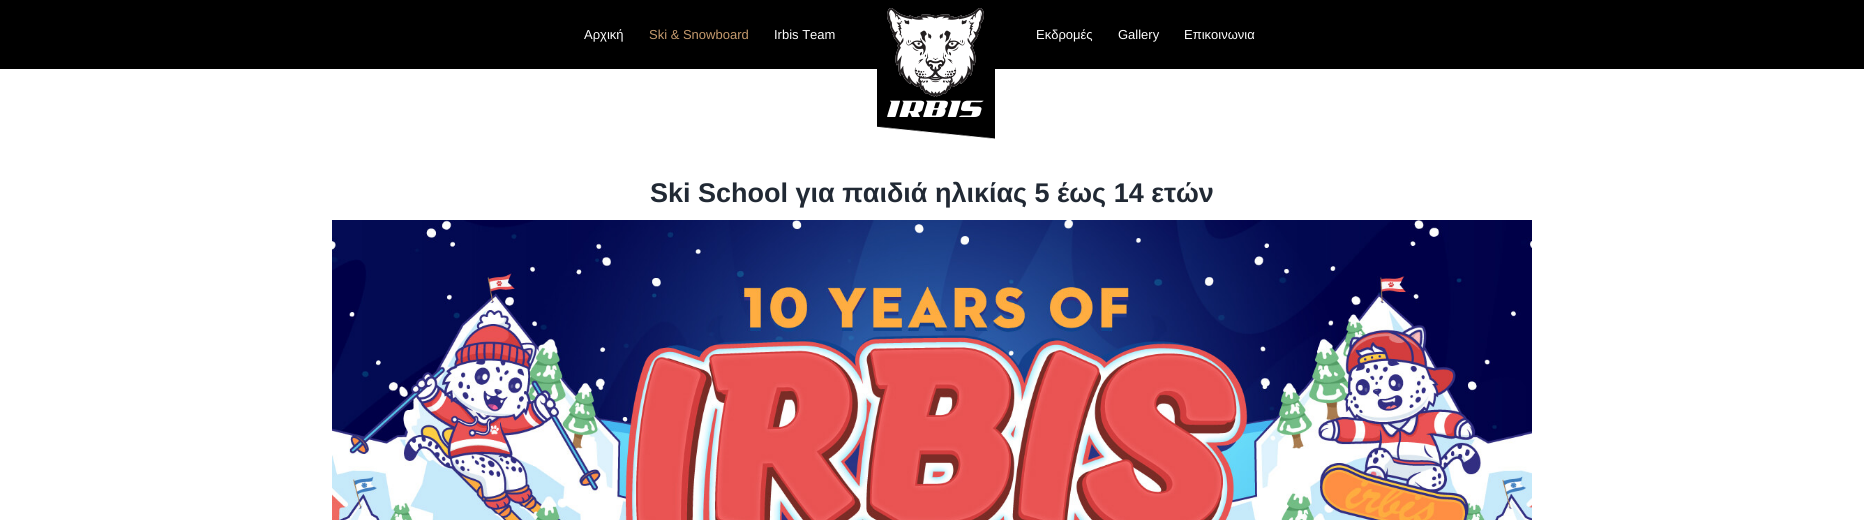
import math
import cairo

surface = cairo.ImageSurface(cairo.FORMAT_RGB24, 1864, 520)
ctx = cairo.Context(surface)
options = cairo.FontOptions()
options.set_hint_metrics(cairo.HINT_METRICS_OFF)
options.set_hint_style(cairo.HINT_STYLE_NONE)
ctx.set_font_options(options)
ctx.set_miter_limit(4)


def picture(path, x, y, w, h):
    ctx.save()
    ctx.set_source_surface(cairo.ImageSurface.create_from_png(path), x, y)
    ctx.rectangle(x, y, w, h)
    ctx.fill()
    ctx.restore()


ctx.set_source_rgb(1, 1, 1)
ctx.paint()
ctx.set_source_rgb(0, 0, 0)
ctx.rectangle(0, 0, 1864, 69)
ctx.fill()
ctx.select_font_face("Liberation Sans")
ctx.set_font_size(13)
ctx.set_source_rgb(1, 1, 1)
ctx.move_to(584, 39)
ctx.show_text("Αρχική")
ctx.set_source_rgb(0.773, 0.604, 0.427)
ctx.move_to(649, 39)
ctx.show_text("Ski & Snowboard")
ctx.set_source_rgb(1, 1, 1)
ctx.move_to(774, 39)
ctx.show_text("Irbis Team")
picture("img1.png", 877, 8, 118, 131)
ctx.move_to(1036, 39)
ctx.show_text("Εκδρομές")
ctx.move_to(1118, 39)
ctx.show_text("Gallery")
ctx.move_to(1184, 39)
ctx.show_text("Επικοινωνια")
ctx.select_font_face("Liberation Sans", cairo.FONT_SLANT_NORMAL, cairo.FONT_WEIGHT_BOLD)
ctx.set_font_size(27)
ctx.set_source_rgb(0.129, 0.161, 0.204)
ctx.move_to(650, 202)
ctx.show_text("Ski School για παιδιά ηλικίας 5 έως 14 ετών")
picture("img2.png", 332, 220, 1200, 300)
surface.write_to_png("page.png")
